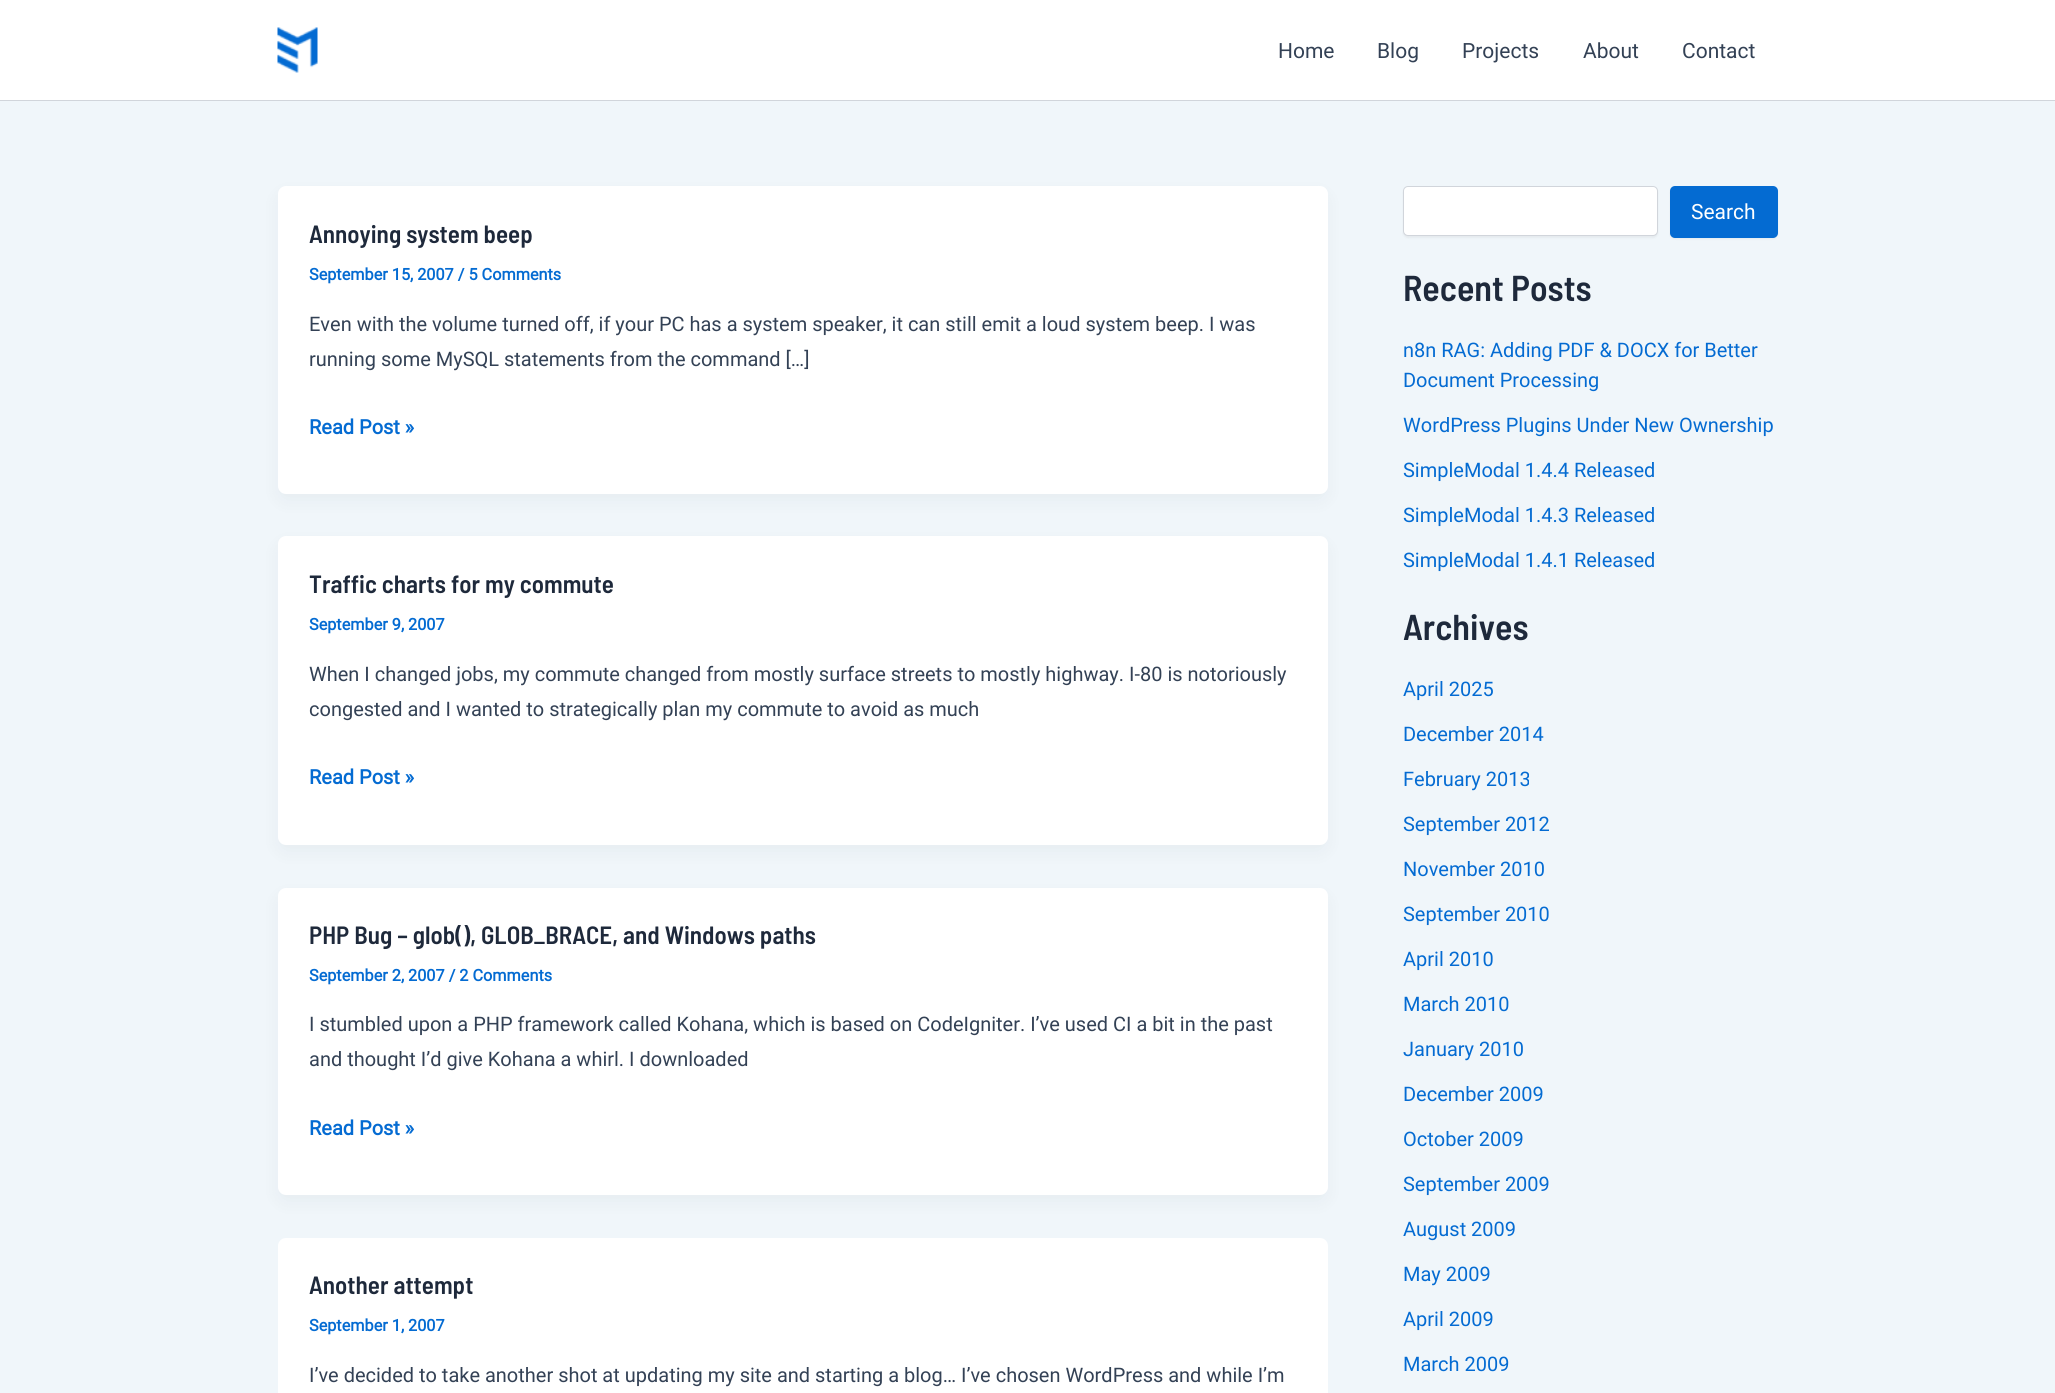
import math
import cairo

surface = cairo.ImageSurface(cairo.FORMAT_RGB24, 2055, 1393)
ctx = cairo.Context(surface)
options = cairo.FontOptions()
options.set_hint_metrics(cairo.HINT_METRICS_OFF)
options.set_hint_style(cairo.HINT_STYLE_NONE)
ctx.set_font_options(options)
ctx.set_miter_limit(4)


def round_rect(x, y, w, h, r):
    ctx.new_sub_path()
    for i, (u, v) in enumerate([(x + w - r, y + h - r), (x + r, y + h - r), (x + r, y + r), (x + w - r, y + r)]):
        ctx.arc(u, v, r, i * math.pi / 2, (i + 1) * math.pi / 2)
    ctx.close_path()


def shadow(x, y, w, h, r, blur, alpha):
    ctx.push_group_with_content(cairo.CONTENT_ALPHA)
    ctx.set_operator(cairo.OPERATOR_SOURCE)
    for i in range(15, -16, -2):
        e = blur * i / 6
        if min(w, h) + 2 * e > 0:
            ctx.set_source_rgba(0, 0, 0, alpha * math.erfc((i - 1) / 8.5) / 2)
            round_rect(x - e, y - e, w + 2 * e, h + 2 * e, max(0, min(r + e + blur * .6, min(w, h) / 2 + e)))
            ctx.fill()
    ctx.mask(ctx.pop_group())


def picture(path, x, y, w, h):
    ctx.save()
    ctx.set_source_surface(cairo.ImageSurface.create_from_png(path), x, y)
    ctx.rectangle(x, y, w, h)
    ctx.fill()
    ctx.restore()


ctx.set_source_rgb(0.941, 0.961, 0.98)
ctx.paint()
ctx.set_source_rgb(1, 1, 1)
ctx.rectangle(0, 0, 2055, 100)
ctx.fill()
ctx.set_source_rgb(0.82, 0.835, 0.859)
ctx.rectangle(0, 100, 2055, 1)
ctx.fill()
picture("img1.png", 277, 27, 41, 46)
ctx.select_font_face("Roboto")
ctx.set_font_size(21)
ctx.set_source_rgb(0.2, 0.255, 0.333)
ctx.move_to(1278, 58)
ctx.show_text("Home")
ctx.move_to(1377, 58)
ctx.show_text("Blog")
ctx.move_to(1462, 58)
ctx.show_text("Projects")
ctx.move_to(1583, 58)
ctx.show_text("About")
ctx.move_to(1682, 58)
ctx.show_text("Contact")
ctx.set_source_rgb(0.063, 0.094, 0.157)
shadow(280, 196, 1045, 303, 5, 9.5, 0.05)
ctx.set_source_rgb(1, 1, 1)
round_rect(278, 186, 1050, 308, 8)
ctx.fill()
ctx.select_font_face("Barlow Semi Condensed SemiBold")
ctx.set_font_size(25)
ctx.set_source_rgb(0.118, 0.161, 0.231)
ctx.move_to(309, 243)
ctx.show_text("Annoying system beep")
ctx.select_font_face("Roboto", cairo.FONT_SLANT_NORMAL, cairo.FONT_WEIGHT_BOLD)
ctx.set_font_size(16.25)
ctx.set_source_rgb(0.016, 0.42, 0.824)
ctx.move_to(309, 280)
ctx.show_text("September 15, 2007 / 5 Comments")
ctx.select_font_face("Roboto")
ctx.set_font_size(20)
ctx.set_source_rgb(0.2, 0.255, 0.333)
ctx.move_to(309, 331)
ctx.show_text("Even with the volume turned off, if your PC has a system speaker, it can still emit a loud system beep. I was")
ctx.move_to(309, 366)
ctx.show_text("running some MySQL statements from the command […]")
ctx.select_font_face("Roboto", cairo.FONT_SLANT_NORMAL, cairo.FONT_WEIGHT_BOLD)
ctx.set_source_rgb(0.016, 0.42, 0.824)
ctx.move_to(309, 434)
ctx.show_text("Read Post »")
ctx.set_source_rgb(0.063, 0.094, 0.157)
shadow(280, 546, 1045, 304, 5, 9.5, 0.05)
ctx.set_source_rgb(1, 1, 1)
round_rect(278, 536, 1050, 309, 8)
ctx.fill()
ctx.select_font_face("Barlow Semi Condensed SemiBold")
ctx.set_font_size(25)
ctx.set_source_rgb(0.118, 0.161, 0.231)
ctx.move_to(309, 593)
ctx.show_text("Traffic charts for my commute")
ctx.select_font_face("Roboto", cairo.FONT_SLANT_NORMAL, cairo.FONT_WEIGHT_BOLD)
ctx.set_font_size(16.25)
ctx.set_source_rgb(0.016, 0.42, 0.824)
ctx.move_to(309, 630)
ctx.show_text("September 9, 2007")
ctx.select_font_face("Roboto")
ctx.set_font_size(20)
ctx.set_source_rgb(0.2, 0.255, 0.333)
ctx.move_to(309, 681)
ctx.show_text("When I changed jobs, my commute changed from mostly surface streets to mostly highway. I-80 is notoriously")
ctx.move_to(309, 716)
ctx.show_text("congested and I wanted to strategically plan my commute to avoid as much")
ctx.select_font_face("Roboto", cairo.FONT_SLANT_NORMAL, cairo.FONT_WEIGHT_BOLD)
ctx.set_source_rgb(0.016, 0.42, 0.824)
ctx.move_to(309, 784)
ctx.show_text("Read Post »")
ctx.set_source_rgb(0.063, 0.094, 0.157)
shadow(280, 898, 1045, 302, 5, 9.5, 0.05)
ctx.set_source_rgb(1, 1, 1)
round_rect(278, 888, 1050, 307, 8)
ctx.fill()
ctx.select_font_face("Barlow Semi Condensed SemiBold")
ctx.set_font_size(25)
ctx.set_source_rgb(0.118, 0.161, 0.231)
ctx.move_to(309, 944)
ctx.show_text("PHP Bug – glob(), GLOB_BRACE, and Windows paths")
ctx.select_font_face("Roboto", cairo.FONT_SLANT_NORMAL, cairo.FONT_WEIGHT_BOLD)
ctx.set_font_size(16.25)
ctx.set_source_rgb(0.016, 0.42, 0.824)
ctx.move_to(309, 981)
ctx.show_text("September 2, 2007 / 2 Comments")
ctx.select_font_face("Roboto")
ctx.set_font_size(20)
ctx.set_source_rgb(0.2, 0.255, 0.333)
ctx.move_to(309, 1031)
ctx.show_text("I stumbled upon a PHP framework called Kohana, which is based on CodeIgniter. I’ve used CI a bit in the past")
ctx.move_to(309, 1066)
ctx.show_text("and thought I’d give Kohana a whirl. I downloaded")
ctx.select_font_face("Roboto", cairo.FONT_SLANT_NORMAL, cairo.FONT_WEIGHT_BOLD)
ctx.set_source_rgb(0.016, 0.42, 0.824)
ctx.move_to(309, 1135)
ctx.show_text("Read Post »")
ctx.set_source_rgb(1, 1, 1)
round_rect(278, 1238, 1050, 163, 8)
ctx.fill()
ctx.select_font_face("Barlow Semi Condensed SemiBold")
ctx.set_font_size(25)
ctx.set_source_rgb(0.118, 0.161, 0.231)
ctx.move_to(309, 1294)
ctx.show_text("Another attempt")
ctx.select_font_face("Roboto", cairo.FONT_SLANT_NORMAL, cairo.FONT_WEIGHT_BOLD)
ctx.set_font_size(16.25)
ctx.set_source_rgb(0.016, 0.42, 0.824)
ctx.move_to(309, 1331)
ctx.show_text("September 1, 2007")
ctx.select_font_face("Roboto")
ctx.set_font_size(20)
ctx.set_source_rgb(0.2, 0.255, 0.333)
ctx.move_to(309, 1382)
ctx.show_text("I’ve decided to take another shot at updating my site and starting a blog… I’ve chosen WordPress and while I’m")
ctx.set_source_rgb(0, 0, 0)
shadow(1403, 188, 255, 50, 5, 1, 0.05)
ctx.set_source_rgb(1, 1, 1)
round_rect(1403.5, 186.5, 254, 49, 4.5)
ctx.fill_preserve()
ctx.set_source_rgb(0.82, 0.835, 0.859)
ctx.set_line_width(1)
ctx.stroke()
ctx.set_source_rgb(0, 0, 0)
shadow(1670, 188, 108, 51, 5, 1, 0.05)
ctx.set_source_rgb(0.016, 0.42, 0.824)
round_rect(1670, 186, 108, 52, 5)
ctx.fill()
ctx.set_font_size(21)
ctx.set_source_rgb(1, 1, 1)
ctx.move_to(1691, 219)
ctx.show_text("Search")
ctx.select_font_face("Barlow Semi Condensed SemiBold")
ctx.set_font_size(36)
ctx.set_source_rgb(0.118, 0.161, 0.231)
ctx.move_to(1403, 301)
ctx.show_text("Recent Posts")
ctx.select_font_face("Roboto")
ctx.set_font_size(20)
ctx.set_source_rgb(0.016, 0.42, 0.824)
ctx.move_to(1403, 357)
ctx.show_text("n8n RAG: Adding PDF & DOCX for Better")
ctx.move_to(1403, 387)
ctx.show_text("Document Processing")
ctx.move_to(1403, 432)
ctx.show_text("WordPress Plugins Under New Ownership")
ctx.move_to(1403, 477)
ctx.show_text("SimpleModal 1.4.4 Released")
ctx.move_to(1403, 522)
ctx.show_text("SimpleModal 1.4.3 Released")
ctx.move_to(1403, 567)
ctx.show_text("SimpleModal 1.4.1 Released")
ctx.select_font_face("Barlow Semi Condensed SemiBold")
ctx.set_font_size(36)
ctx.set_source_rgb(0.118, 0.161, 0.231)
ctx.move_to(1403, 640)
ctx.show_text("Archives")
ctx.select_font_face("Roboto")
ctx.set_font_size(20)
ctx.set_source_rgb(0.016, 0.42, 0.824)
ctx.move_to(1403, 696)
ctx.show_text("April 2025")
ctx.move_to(1403, 741)
ctx.show_text("December 2014")
ctx.move_to(1403, 786)
ctx.show_text("February 2013")
ctx.move_to(1403, 831)
ctx.show_text("September 2012")
ctx.move_to(1403, 876)
ctx.show_text("November 2010")
ctx.move_to(1403, 921)
ctx.show_text("September 2010")
ctx.move_to(1403, 966)
ctx.show_text("April 2010")
ctx.move_to(1403, 1011)
ctx.show_text("March 2010")
ctx.move_to(1403, 1056)
ctx.show_text("January 2010")
ctx.move_to(1403, 1101)
ctx.show_text("December 2009")
ctx.move_to(1403, 1146)
ctx.show_text("October 2009")
ctx.move_to(1403, 1191)
ctx.show_text("September 2009")
ctx.move_to(1403, 1236)
ctx.show_text("August 2009")
ctx.move_to(1403, 1281)
ctx.show_text("May 2009")
ctx.move_to(1403, 1326)
ctx.show_text("April 2009")
ctx.move_to(1403, 1371)
ctx.show_text("March 2009")
surface.write_to_png("page.png")
